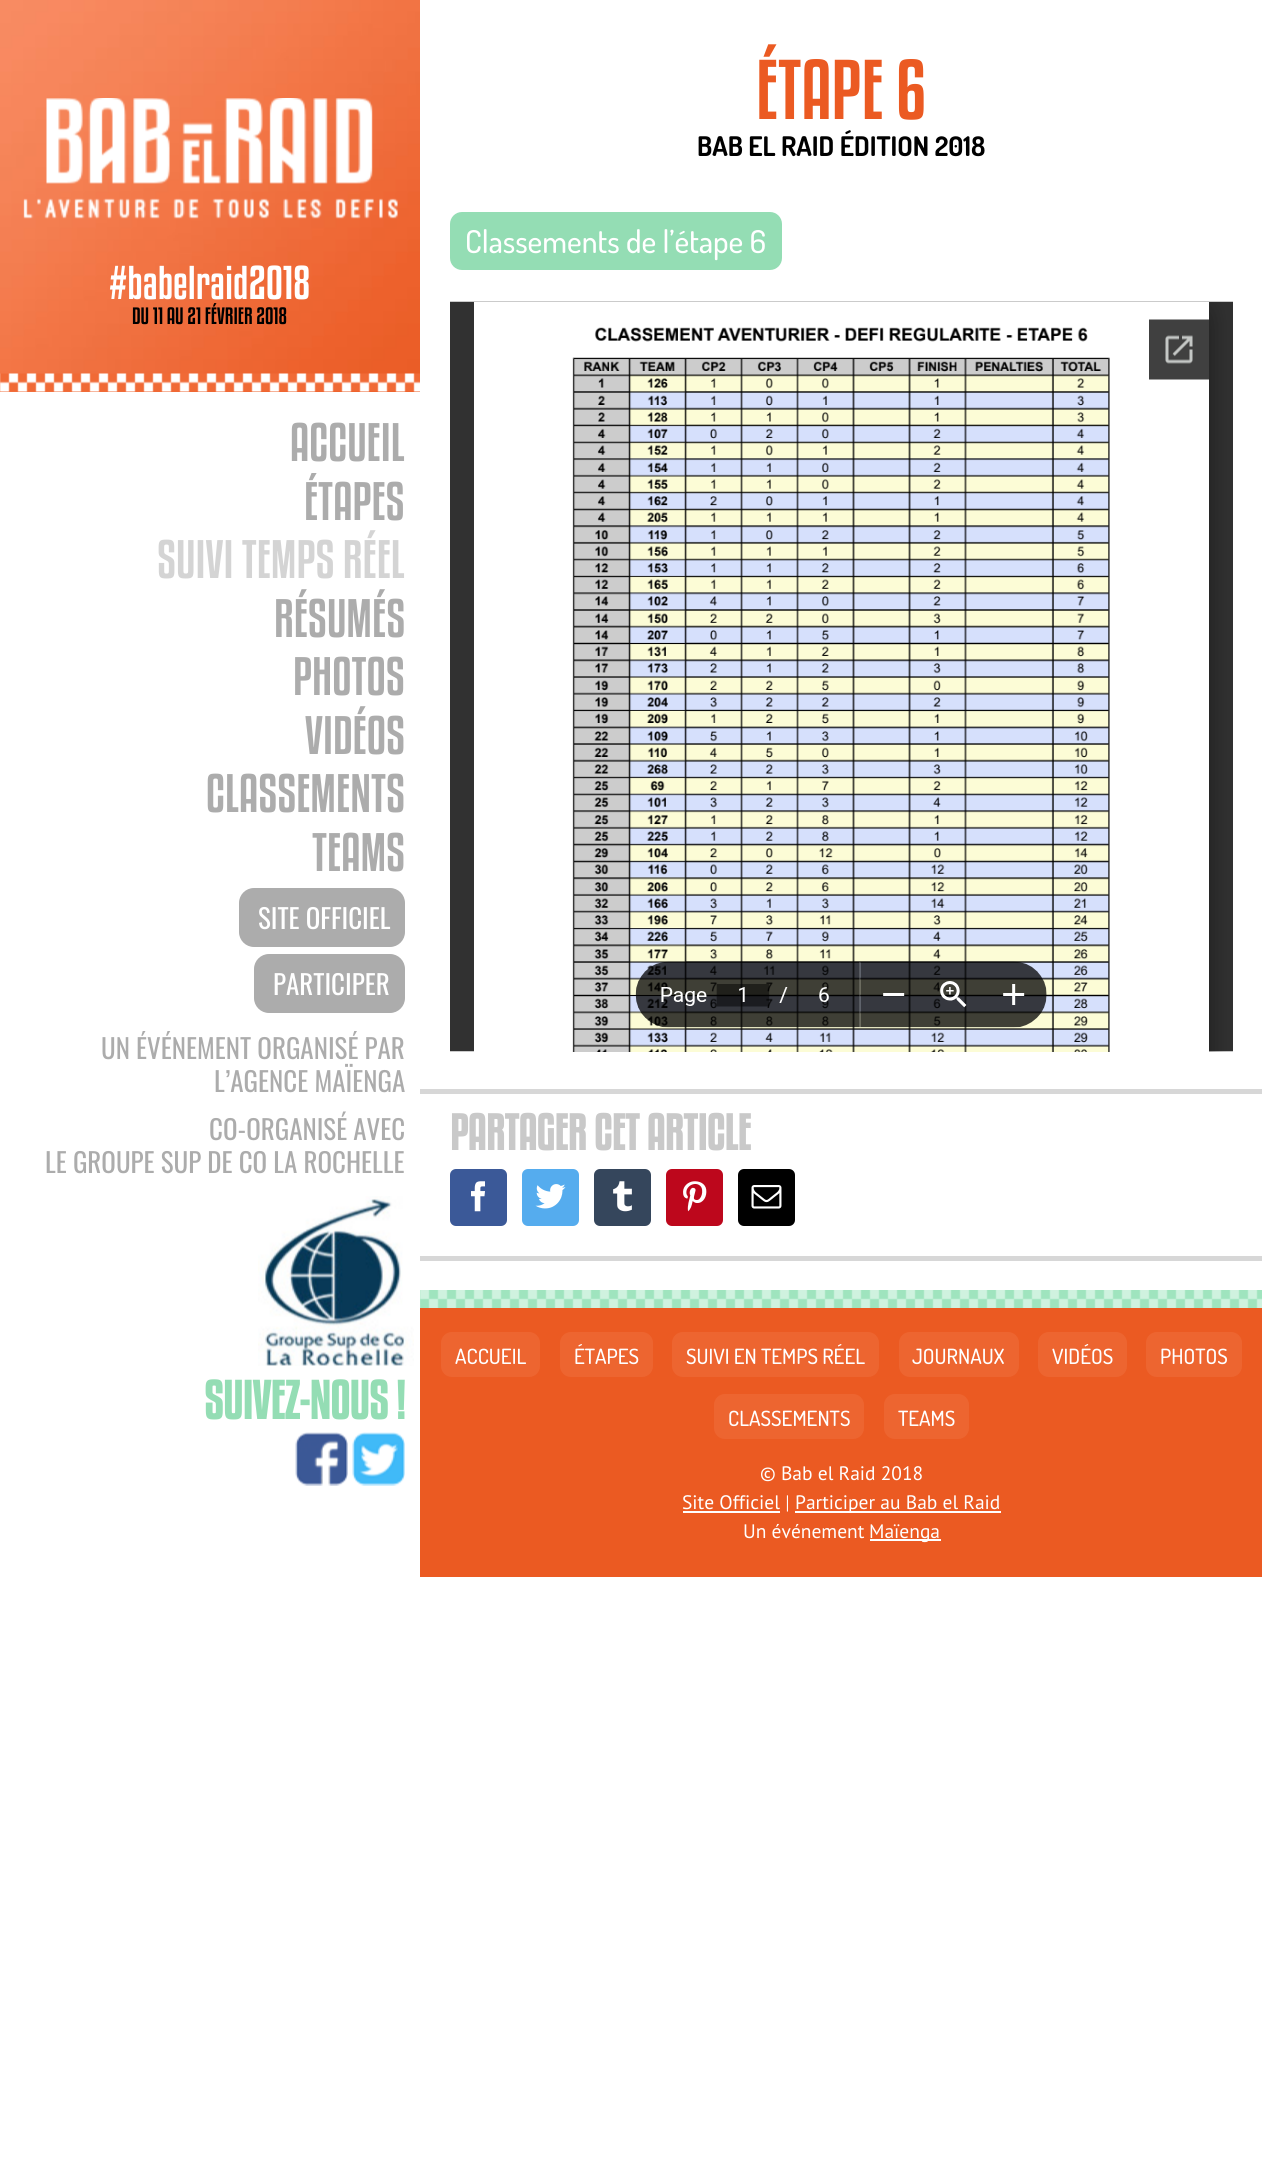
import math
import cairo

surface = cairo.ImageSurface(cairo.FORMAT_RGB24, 1262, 2180)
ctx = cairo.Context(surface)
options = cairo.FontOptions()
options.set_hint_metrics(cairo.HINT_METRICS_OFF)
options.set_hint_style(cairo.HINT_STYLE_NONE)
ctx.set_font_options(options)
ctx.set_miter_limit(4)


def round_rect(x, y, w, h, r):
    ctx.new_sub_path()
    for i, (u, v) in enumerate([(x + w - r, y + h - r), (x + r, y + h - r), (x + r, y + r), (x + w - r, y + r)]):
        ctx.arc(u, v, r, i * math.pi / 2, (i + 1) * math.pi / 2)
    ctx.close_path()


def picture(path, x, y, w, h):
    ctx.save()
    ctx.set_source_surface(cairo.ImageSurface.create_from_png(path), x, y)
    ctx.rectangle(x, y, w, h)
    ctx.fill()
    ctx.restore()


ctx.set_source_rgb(1, 1, 1)
ctx.paint()
picture("img1.png", 0, 0, 420, 392)
picture("img2.png", 23, 98, 375, 121)
ctx.select_font_face("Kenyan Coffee")
ctx.set_font_size(42)
ctx.set_source_rgb(1, 1, 1)
ctx.move_to(109, 299)
ctx.show_text("#babelraid2018")
ctx.set_font_size(21)
ctx.set_source_rgb(0, 0, 0)
ctx.move_to(132, 324)
ctx.show_text("DU 11 AU 21 FÉVRIER 2018")
picture("img3.png", 0, 373, 420, 19)
ctx.set_font_size(48)
ctx.set_source_rgb(0.675, 0.675, 0.675)
ctx.move_to(290, 461)
ctx.show_text("ACCUEIL")
ctx.save()
ctx.rectangle(0, 473, 420, 58)
ctx.clip()
ctx.move_to(304, 520)
ctx.show_text("ÉTAPES")
ctx.restore()
ctx.set_source_rgb(0.831, 0.831, 0.831)
ctx.move_to(157, 578)
ctx.show_text("SUIVI TEMPS RÉEL")
ctx.set_source_rgb(0.675, 0.675, 0.675)
ctx.move_to(274, 637)
ctx.show_text("RÉSUMÉS")
ctx.move_to(293, 695)
ctx.show_text("PHOTOS")
ctx.move_to(305, 754)
ctx.show_text("VIDÉOS")
ctx.move_to(206, 812)
ctx.show_text("CLASSEMENTS")
ctx.move_to(312, 871)
ctx.show_text("TEAMS")
round_rect(239, 888, 166, 59, 15)
ctx.fill()
ctx.select_font_face("Oswald")
ctx.set_font_size(27)
ctx.set_source_rgb(1, 1, 1)
ctx.move_to(258, 929)
ctx.show_text("SITE OFFICIEL")
ctx.set_source_rgb(0.675, 0.675, 0.675)
round_rect(254, 954, 151, 59, 15)
ctx.fill()
ctx.set_source_rgb(1, 1, 1)
ctx.move_to(273, 995)
ctx.show_text("PARTICIPER")
ctx.save()
ctx.rectangle(0, 1031, 420, 66)
ctx.clip()
ctx.set_source_rgb(0.675, 0.675, 0.675)
ctx.move_to(101, 1059)
ctx.show_text("UN ÉVÉNEMENT ORGANISÉ PAR")
ctx.restore()
ctx.set_source_rgb(0.675, 0.675, 0.675)
ctx.move_to(214, 1092)
ctx.show_text("L’AGENCE MAÏENGA")
picture("img4.png", 258, 1196, 156, 170)
ctx.move_to(209, 1140)
ctx.show_text("CO-ORGANISÉ AVEC")
ctx.move_to(45, 1173)
ctx.show_text("LE GROUPE SUP DE CO LA ROCHELLE")
ctx.select_font_face("Kenyan Coffee", cairo.FONT_SLANT_NORMAL, cairo.FONT_WEIGHT_BOLD)
ctx.set_font_size(48)
ctx.set_source_rgb(0.58, 0.867, 0.706)
ctx.move_to(204, 1419)
ctx.show_text("SUIVEZ-NOUS !")
picture("img5.png", 295, 1432, 53, 54)
picture("img6.png", 352, 1432, 53, 54)
ctx.select_font_face("Kenyan Coffee")
ctx.set_font_size(75)
ctx.set_source_rgb(0.918, 0.353, 0.133)
ctx.move_to(756, 119)
ctx.show_text("ÉTAPE 6")
ctx.select_font_face("Dosis ExtraLight")
ctx.set_font_size(27)
ctx.set_source_rgb(0, 0, 0)
ctx.move_to(697, 156)
ctx.show_text("BAB EL RAID ÉDITION 2018")
ctx.set_source_rgb(0.58, 0.867, 0.706)
round_rect(450, 212, 332, 58, 12)
ctx.fill()
ctx.select_font_face("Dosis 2 ExtraLight")
ctx.set_font_size(31.5)
ctx.set_source_rgb(1, 1, 1)
ctx.move_to(465, 253)
ctx.show_text("Classements de l’étape 6")
picture("img7.png", 450, 301, 783, 751)
ctx.set_source_rgb(0.843, 0.843, 0.843)
ctx.rectangle(420, 1089, 842, 5)
ctx.fill()
ctx.rectangle(420, 1256, 842, 5)
ctx.fill()
ctx.select_font_face("Kenyan Coffee", cairo.FONT_SLANT_NORMAL, cairo.FONT_WEIGHT_BOLD)
ctx.set_font_size(45)
ctx.set_source_rgb(0.788, 0.788, 0.788)
ctx.move_to(450, 1150)
ctx.show_text("PARTAGER CET ARTICLE")
ctx.set_source_rgb(0.231, 0.349, 0.596)
round_rect(451, 1170, 55, 55, 5)
ctx.fill_preserve()
ctx.stroke()
picture("img8.png", 471, 1181, 14, 31)
ctx.set_source_rgb(0.333, 0.675, 0.933)
round_rect(523, 1170, 55, 55, 5)
ctx.fill_preserve()
ctx.stroke()
picture("img9.png", 535, 1184, 31, 25)
ctx.set_source_rgb(0.208, 0.275, 0.361)
round_rect(595, 1170, 55, 55, 5)
ctx.fill_preserve()
ctx.stroke()
picture("img10.png", 613, 1181, 19, 31)
ctx.set_source_rgb(0.741, 0.031, 0.11)
round_rect(667, 1170, 55, 55, 5)
ctx.fill_preserve()
ctx.stroke()
picture("img11.png", 683, 1181, 24, 31)
ctx.set_source_rgb(0, 0, 0)
round_rect(739, 1170, 55, 55, 5)
ctx.fill_preserve()
ctx.stroke()
picture("img12.png", 751, 1185, 31, 24)
picture("img13.png", 420, 1290, 842, 18)
ctx.set_source_rgb(0.918, 0.353, 0.133)
ctx.rectangle(420, 1308, 842, 269)
ctx.fill()
ctx.set_source_rgb(0.929, 0.396, 0.188)
round_rect(441, 1332, 99, 45, 11)
ctx.fill()
ctx.select_font_face("Dosis 2 ExtraLight")
ctx.set_font_size(21)
ctx.set_source_rgb(1, 1, 1)
ctx.move_to(455, 1364)
ctx.show_text("ACCUEIL")
ctx.set_source_rgb(0.929, 0.396, 0.188)
round_rect(560, 1332, 93, 45, 11)
ctx.fill()
ctx.set_source_rgb(1, 1, 1)
ctx.move_to(574, 1364)
ctx.show_text("ÉTAPES")
ctx.set_source_rgb(0.929, 0.396, 0.188)
round_rect(672, 1332, 207, 45, 11)
ctx.fill()
ctx.set_source_rgb(1, 1, 1)
ctx.move_to(686, 1364)
ctx.show_text("SUIVI EN TEMPS RÉEL")
ctx.set_source_rgb(0.929, 0.396, 0.188)
round_rect(899, 1332, 120, 45, 11)
ctx.fill()
ctx.set_source_rgb(1, 1, 1)
ctx.move_to(912, 1364)
ctx.show_text("JOURNAUX")
ctx.set_source_rgb(0.929, 0.396, 0.188)
round_rect(1038, 1332, 89, 45, 11)
ctx.fill()
ctx.set_source_rgb(1, 1, 1)
ctx.move_to(1052, 1364)
ctx.show_text("VIDÉOS")
ctx.set_source_rgb(0.929, 0.396, 0.188)
round_rect(1146, 1332, 96, 45, 11)
ctx.fill()
ctx.set_source_rgb(1, 1, 1)
ctx.move_to(1160, 1364)
ctx.show_text("PHOTOS")
ctx.set_source_rgb(0.929, 0.396, 0.188)
round_rect(714, 1394, 150, 45, 11)
ctx.fill()
ctx.set_source_rgb(1, 1, 1)
ctx.move_to(728, 1426)
ctx.show_text("CLASSEMENTS")
ctx.set_source_rgb(0.929, 0.396, 0.188)
round_rect(884, 1394, 85, 45, 11)
ctx.fill()
ctx.set_source_rgb(1, 1, 1)
ctx.move_to(898, 1426)
ctx.show_text("TEAMS")
ctx.select_font_face("PT Sans")
ctx.set_font_size(19.5)
ctx.move_to(760, 1480)
ctx.show_text("© Bab el Raid 2018")
ctx.rectangle(683, 1511, 97, 2)
ctx.fill()
ctx.move_to(682, 1509)
ctx.show_text("Site Officiel |")
ctx.rectangle(795, 1511, 206, 2)
ctx.fill()
ctx.move_to(795, 1509)
ctx.show_text("Participer au Bab el Raid")
ctx.move_to(743, 1538)
ctx.show_text("Un événement")
ctx.rectangle(870, 1539, 71, 2)
ctx.fill()
ctx.move_to(869, 1538)
ctx.show_text("Maïenga")
surface.write_to_png("page.png")
